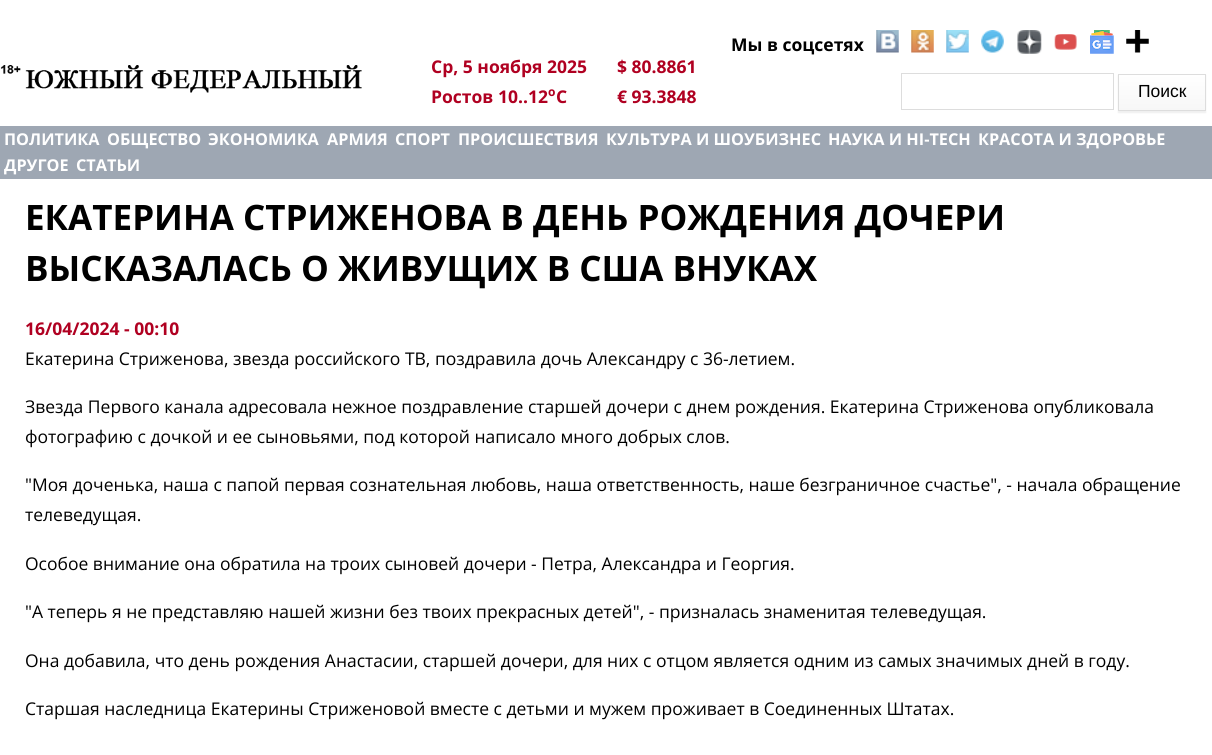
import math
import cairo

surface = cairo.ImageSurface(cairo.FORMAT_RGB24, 1212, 755)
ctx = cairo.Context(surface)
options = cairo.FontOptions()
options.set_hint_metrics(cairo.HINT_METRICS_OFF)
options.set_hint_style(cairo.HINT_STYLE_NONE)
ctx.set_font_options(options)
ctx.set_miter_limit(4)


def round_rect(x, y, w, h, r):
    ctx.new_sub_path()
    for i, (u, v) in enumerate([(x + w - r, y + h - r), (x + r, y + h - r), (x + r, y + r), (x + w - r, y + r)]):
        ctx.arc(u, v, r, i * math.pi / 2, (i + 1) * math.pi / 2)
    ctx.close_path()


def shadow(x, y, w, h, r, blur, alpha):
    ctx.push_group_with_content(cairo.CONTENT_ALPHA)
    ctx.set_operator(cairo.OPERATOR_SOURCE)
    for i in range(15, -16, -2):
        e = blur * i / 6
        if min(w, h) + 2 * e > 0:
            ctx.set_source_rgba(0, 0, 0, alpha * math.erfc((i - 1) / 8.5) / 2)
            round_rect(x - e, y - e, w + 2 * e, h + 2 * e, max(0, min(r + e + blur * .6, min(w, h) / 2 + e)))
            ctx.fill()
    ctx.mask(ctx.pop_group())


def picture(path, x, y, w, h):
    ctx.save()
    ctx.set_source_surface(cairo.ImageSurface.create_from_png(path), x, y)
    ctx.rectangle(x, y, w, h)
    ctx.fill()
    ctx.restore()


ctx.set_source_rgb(1, 1, 1)
ctx.paint()
picture("img1.png", 0, 65, 362, 28)
ctx.select_font_face("Open Sans", cairo.FONT_SLANT_NORMAL, cairo.FONT_WEIGHT_BOLD)
ctx.set_font_size(17.5)
ctx.set_source_rgb(0, 0, 0)
ctx.move_to(731, 51)
ctx.show_text("Мы в соцсетях")
picture("img2.png", 876, 30, 23, 23)
picture("img3.png", 911, 30, 23, 23)
picture("img4.png", 946, 30, 23, 23)
picture("img5.png", 981, 30, 23, 23)
picture("img6.png", 1017, 30, 25, 24)
picture("img7.png", 1054, 34, 23, 16)
picture("img8.png", 1090, 30, 24, 24)
picture("img9.png", 1126, 30, 23, 23)
ctx.set_source_rgb(0.69, 0, 0.129)
ctx.move_to(431, 73)
ctx.show_text("Ср, 5 ноября 2025")
ctx.move_to(617, 73)
ctx.show_text("$ 80.8861")
ctx.move_to(431, 103)
ctx.show_text("Ростов 10..12")
ctx.set_font_size(12)
ctx.move_to(548, 96)
ctx.show_text("o")
ctx.set_font_size(17.5)
ctx.move_to(556, 103)
ctx.show_text("C")
ctx.move_to(617, 103)
ctx.show_text("€ 93.3848")
ctx.rectangle(901.5, 73.5, 212, 36)
ctx.set_source_rgb(0.867, 0.867, 0.867)
ctx.set_line_width(1)
ctx.stroke()
ctx.set_source_rgb(0.706, 0.706, 0.706)
shadow(1118, 75, 88, 38, 0, 0.5, 0.2)
gradient = cairo.LinearGradient(1162, 110, 1162, 75)
gradient.add_color_stop_rgba(0, 0.969, 0.969, 0.969, 1)
gradient.add_color_stop_rgba(1, 1, 1, 1, 1)
ctx.set_source(gradient)
ctx.rectangle(1119, 75, 86, 35)
ctx.fill()
ctx.rectangle(1118.5, 74.5, 87, 36)
ctx.set_source_rgb(0.867, 0.867, 0.867)
ctx.stroke()
ctx.select_font_face("Liberation Sans")
ctx.set_source_rgb(0, 0, 0)
ctx.move_to(1138, 97)
ctx.show_text("Поиск")
ctx.set_source_rgb(0.62, 0.655, 0.702)
ctx.rectangle(0, 126, 1212, 53)
ctx.fill()
ctx.select_font_face("Open Sans", cairo.FONT_SLANT_NORMAL, cairo.FONT_WEIGHT_BOLD)
ctx.set_font_size(16.25)
ctx.set_source_rgb(1, 1, 1)
ctx.move_to(4, 145)
ctx.show_text("ПОЛИТИКА")
ctx.move_to(107, 145)
ctx.show_text("ОБЩЕСТВО")
ctx.move_to(208, 145)
ctx.show_text("ЭКОНОМИКА")
ctx.move_to(327, 145)
ctx.show_text("АРМИЯ")
ctx.move_to(395, 145)
ctx.show_text("СПОРТ")
ctx.move_to(458, 145)
ctx.show_text("ПРОИСШЕСТВИЯ")
ctx.move_to(606, 145)
ctx.show_text("КУЛЬТУРА И ШОУБИЗНЕС")
ctx.move_to(828, 145)
ctx.show_text("НАУКА И HI-TECH")
ctx.move_to(978, 145)
ctx.show_text("КРАСОТА И ЗДОРОВЬЕ")
ctx.move_to(4, 171)
ctx.show_text("ДРУГОЕ")
ctx.move_to(76, 171)
ctx.show_text("СТАТЬИ")
ctx.set_font_size(35)
ctx.set_source_rgb(0, 0, 0)
ctx.move_to(25, 230)
ctx.show_text("ЕКАТЕРИНА СТРИЖЕНОВА В ДЕНЬ РОЖДЕНИЯ ДОЧЕРИ")
ctx.move_to(25, 281)
ctx.show_text("ВЫСКАЗАЛАСЬ О ЖИВУЩИХ В США ВНУКАХ")
ctx.set_font_size(17.5)
ctx.set_source_rgb(0.69, 0, 0.129)
ctx.move_to(25, 335)
ctx.show_text("16/04/2024 - 00:10")
ctx.select_font_face("Open Sans")
ctx.set_source_rgb(0, 0, 0)
ctx.move_to(25, 365)
ctx.show_text("Екатерина Стриженова, звезда российского ТВ, поздравила дочь Александру с 36-летием.")
ctx.move_to(25, 413)
ctx.show_text("Звезда Первого канала адресовала нежное поздравление старшей дочери с днем рождения. Екатерина Стриженова опубликовала")
ctx.move_to(25, 443)
ctx.show_text("фотографию с дочкой и ее сыновьями, под которой написало много добрых слов.")
ctx.move_to(25, 491)
ctx.show_text("\"Моя доченька, наша с папой первая сознательная любовь, наша ответственность, наше безграничное счастье\", - начала обращение")
ctx.move_to(25, 521)
ctx.show_text("телеведущая.")
ctx.move_to(25, 570)
ctx.show_text("Особое внимание она обратила на троих сыновей дочери - Петра, Александра и Георгия.")
ctx.move_to(25, 618)
ctx.show_text("\"А теперь я не представляю нашей жизни без твоих прекрасных детей\", - призналась знаменитая телеведущая.")
ctx.move_to(25, 667)
ctx.show_text("Она добавила, что день рождения Анастасии, старшей дочери, для них с отцом является одним из самых значимых дней в году.")
ctx.move_to(25, 715)
ctx.show_text("Старшая наследница Екатерины Стриженовой вместе с детьми и мужем проживает в Соединенных Штатах.")
surface.write_to_png("page.png")
